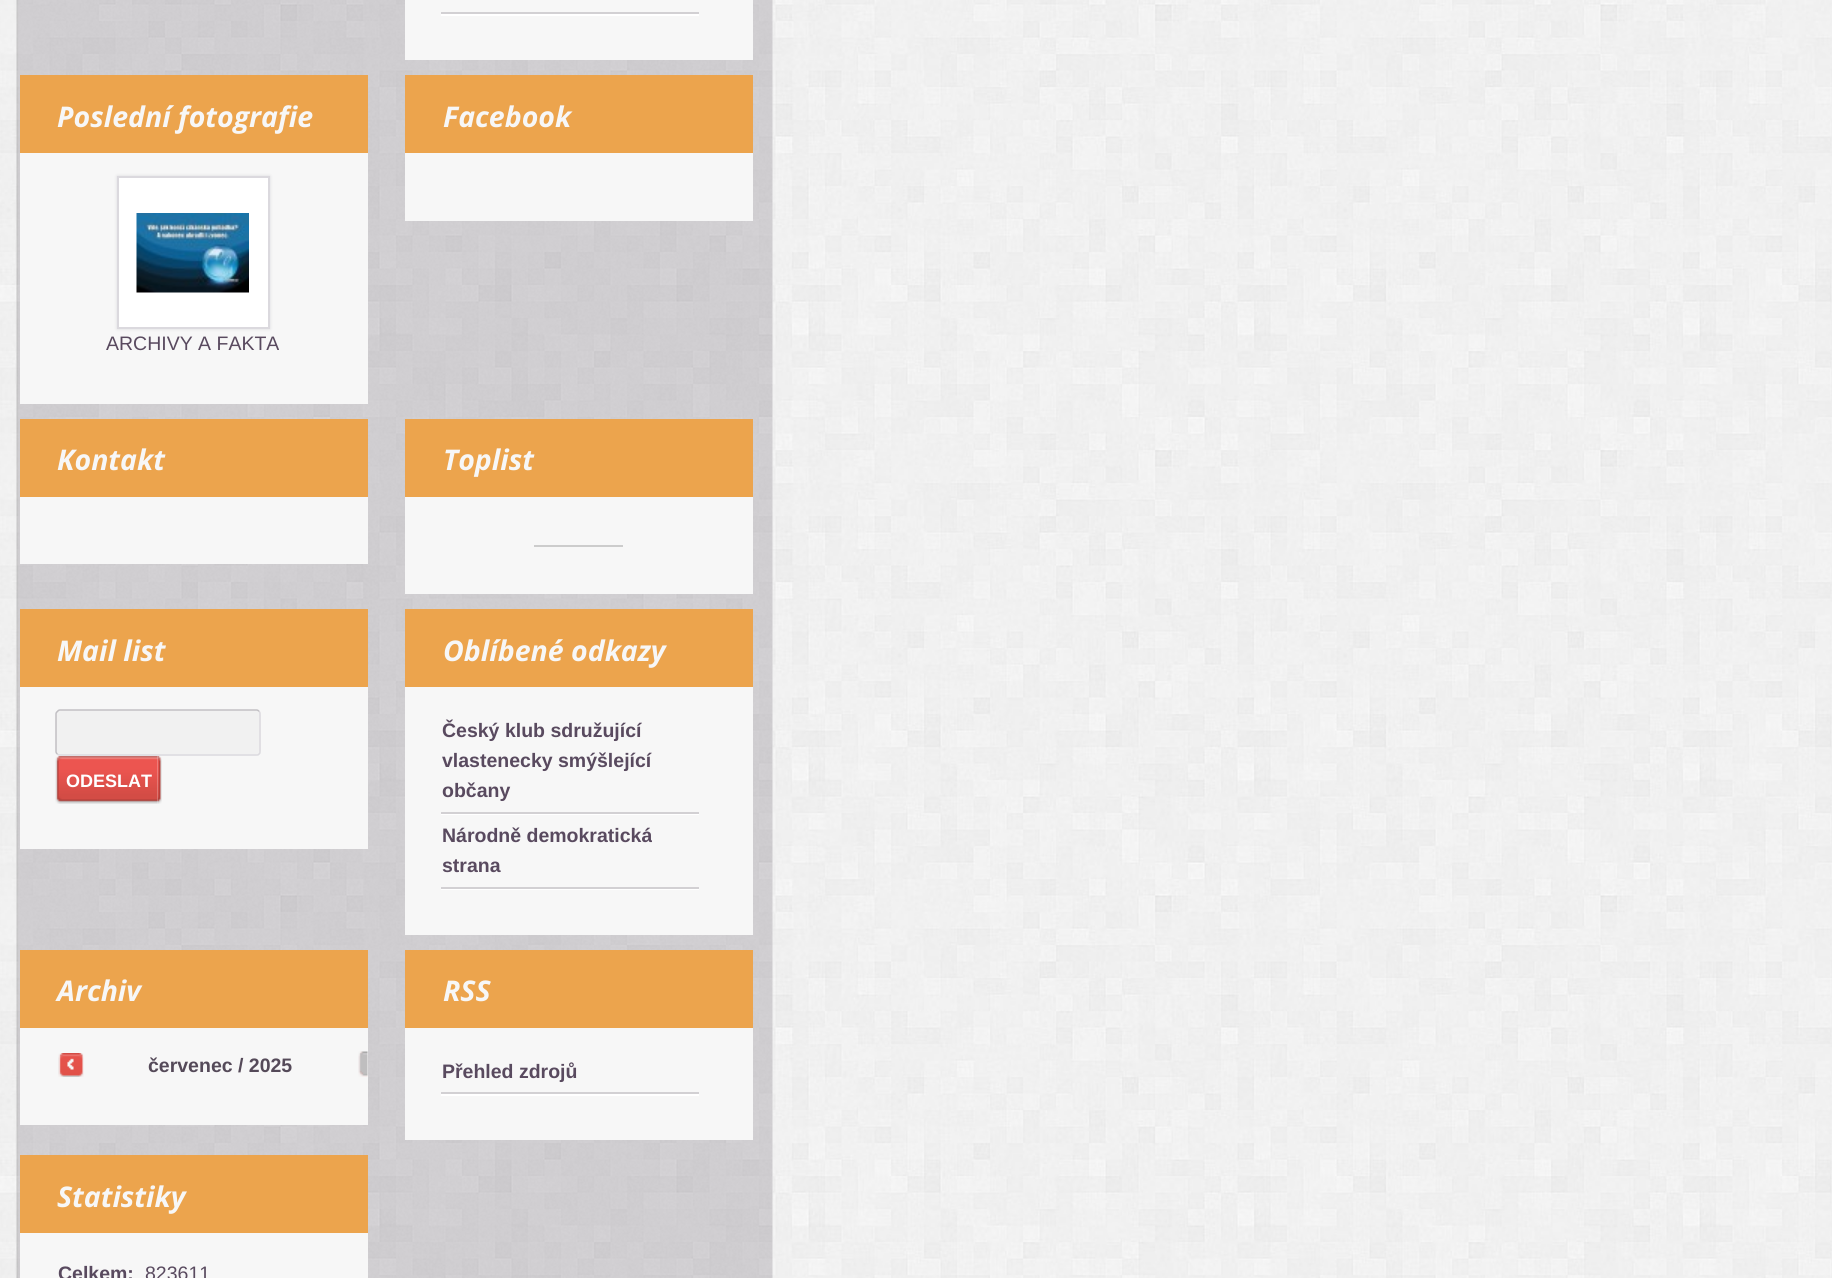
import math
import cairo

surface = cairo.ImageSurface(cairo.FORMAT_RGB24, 1832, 1278)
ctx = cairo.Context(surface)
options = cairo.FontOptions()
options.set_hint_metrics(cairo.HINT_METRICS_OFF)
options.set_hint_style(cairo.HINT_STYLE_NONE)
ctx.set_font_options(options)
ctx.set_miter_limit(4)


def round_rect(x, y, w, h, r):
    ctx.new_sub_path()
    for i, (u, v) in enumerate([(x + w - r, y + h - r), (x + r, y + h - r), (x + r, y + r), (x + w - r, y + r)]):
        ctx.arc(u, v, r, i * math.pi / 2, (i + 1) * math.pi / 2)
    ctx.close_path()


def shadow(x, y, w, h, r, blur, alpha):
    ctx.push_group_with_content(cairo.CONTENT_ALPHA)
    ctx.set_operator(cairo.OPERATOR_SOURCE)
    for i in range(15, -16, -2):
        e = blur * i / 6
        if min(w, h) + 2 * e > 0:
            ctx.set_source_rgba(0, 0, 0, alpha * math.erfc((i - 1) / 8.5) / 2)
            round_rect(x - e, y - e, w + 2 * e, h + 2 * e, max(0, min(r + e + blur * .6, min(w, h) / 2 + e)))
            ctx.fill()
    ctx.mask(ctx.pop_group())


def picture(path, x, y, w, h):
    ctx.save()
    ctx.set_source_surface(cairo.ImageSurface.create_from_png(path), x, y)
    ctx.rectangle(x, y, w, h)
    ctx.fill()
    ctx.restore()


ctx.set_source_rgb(1, 1, 1)
ctx.paint()
picture("img1.png", 0, 0, 1832, 1278)
picture("img2.png", 16, 0, 757, 1278)
ctx.set_source_rgb(0.965, 0.965, 0.965)
ctx.rectangle(405, 0, 348, 60)
ctx.fill()
ctx.set_source_rgb(1, 1, 1)
ctx.rectangle(441, 14, 258, 2)
ctx.fill()
ctx.set_source_rgb(0.824, 0.816, 0.827)
ctx.rectangle(441, 12, 258, 2)
ctx.fill()
ctx.set_source_rgb(0.925, 0.643, 0.302)
ctx.rectangle(20, 75, 348, 78)
ctx.fill()
ctx.select_font_face("Open Sans", cairo.FONT_SLANT_ITALIC, cairo.FONT_WEIGHT_BOLD)
ctx.set_font_size(28.5)
ctx.set_source_rgb(0.965, 0.965, 0.965)
ctx.move_to(57, 127)
ctx.show_text("Poslední fotografie")
ctx.rectangle(20, 153, 348, 251)
ctx.fill()
ctx.set_source_rgb(0.859, 0.851, 0.871)
shadow(117, 176, 153, 153, 0, 1.5, 1)
ctx.set_source_rgb(1, 1, 1)
ctx.rectangle(118, 177, 151, 151)
ctx.fill_preserve()
ctx.set_source_rgb(0.859, 0.851, 0.871)
ctx.stroke()
picture("img3.png", 136, 213, 113, 80)
ctx.select_font_face("Liberation Sans")
ctx.set_font_size(19.5)
ctx.set_source_rgb(0.349, 0.29, 0.373)
ctx.move_to(106, 350)
ctx.show_text("ARCHIVY A FAKTA")
ctx.set_source_rgb(0.925, 0.643, 0.302)
ctx.rectangle(405, 75, 348, 78)
ctx.fill()
ctx.select_font_face("Open Sans", cairo.FONT_SLANT_ITALIC, cairo.FONT_WEIGHT_BOLD)
ctx.set_font_size(28.5)
ctx.set_source_rgb(0.965, 0.965, 0.965)
ctx.move_to(443, 127)
ctx.show_text("Facebook")
ctx.rectangle(405, 153, 348, 68)
ctx.fill()
ctx.set_source_rgb(0.925, 0.643, 0.302)
ctx.rectangle(20, 419, 348, 78)
ctx.fill()
ctx.set_source_rgb(0.965, 0.965, 0.965)
ctx.move_to(57, 470)
ctx.show_text("Kontakt")
ctx.rectangle(20, 497, 348, 67)
ctx.fill()
ctx.set_source_rgb(0.925, 0.643, 0.302)
ctx.rectangle(405, 419, 348, 78)
ctx.fill()
ctx.set_source_rgb(0.965, 0.965, 0.965)
ctx.move_to(443, 470)
ctx.show_text("Toplist")
ctx.rectangle(405, 497, 348, 97)
ctx.fill()
ctx.set_source_rgb(0.8, 0.8, 0.8)
ctx.rectangle(534, 545, 89, 2)
ctx.fill()
ctx.set_source_rgb(0.925, 0.643, 0.302)
ctx.rectangle(20, 609, 348, 78)
ctx.fill()
ctx.set_source_rgb(0.965, 0.965, 0.965)
ctx.move_to(57, 661)
ctx.show_text("Mail list")
ctx.rectangle(20, 687, 348, 162)
ctx.fill()
ctx.set_source_rgb(0.945, 0.945, 0.945)
round_rect(56, 710, 205, 46, 5)
ctx.fill()
ctx.new_path()
ctx.move_to(259, 711.5)
ctx.curve_to(260, 712, 260, 713, 260, 714)
ctx.line_to(260, 751.5)
ctx.curve_to(260, 752.5, 260, 753.5, 259, 754)
ctx.curve_to(258.5, 755, 257.5, 755, 256.5, 755)
ctx.line_to(60, 755)
ctx.curve_to(59, 755, 58, 755, 57.5, 754)
ctx.set_source_rgb(0.863, 0.855, 0.875)
ctx.set_line_width(1.5)
ctx.stroke()
ctx.new_path()
ctx.move_to(57.5, 754)
ctx.curve_to(56.5, 753.5, 56, 752.5, 56, 751.5)
ctx.line_to(56, 714)
ctx.curve_to(56, 713, 56.5, 712, 57.5, 711.5)
ctx.curve_to(58, 710.5, 59, 710, 60, 710)
ctx.line_to(256.5, 710)
ctx.curve_to(257.5, 710, 258.5, 710.5, 259, 711.5)
ctx.set_source_rgb(0.757, 0.749, 0.765)
ctx.stroke()
picture("img4.png", 157, 756, 5, 48)
picture("img5.png", 55, 756, 103, 48)
ctx.select_font_face("Liberation Sans", cairo.FONT_SLANT_NORMAL, cairo.FONT_WEIGHT_BOLD)
ctx.set_font_size(18)
ctx.set_source_rgb(1, 1, 1)
ctx.move_to(66, 787)
ctx.show_text("ODESLAT")
ctx.set_source_rgb(0.925, 0.643, 0.302)
ctx.rectangle(405, 609, 348, 78)
ctx.fill()
ctx.select_font_face("Open Sans", cairo.FONT_SLANT_ITALIC, cairo.FONT_WEIGHT_BOLD)
ctx.set_font_size(28.5)
ctx.set_source_rgb(0.965, 0.965, 0.965)
ctx.move_to(443, 661)
ctx.show_text("Oblíbené odkazy")
ctx.rectangle(405, 687, 348, 248)
ctx.fill()
ctx.set_source_rgb(1, 1, 1)
ctx.rectangle(441, 814, 258, 1)
ctx.fill()
ctx.set_source_rgb(0.824, 0.816, 0.827)
ctx.rectangle(441, 812, 258, 2)
ctx.fill()
ctx.select_font_face("Liberation Sans", cairo.FONT_SLANT_NORMAL, cairo.FONT_WEIGHT_BOLD)
ctx.set_font_size(19.5)
ctx.set_source_rgb(0.349, 0.29, 0.373)
ctx.move_to(442, 737)
ctx.show_text("Český klub sdružující")
ctx.move_to(442, 767)
ctx.show_text("vlastenecky smýšlející")
ctx.move_to(442, 797)
ctx.show_text("občany")
ctx.set_source_rgb(1, 1, 1)
ctx.rectangle(441, 889, 258, 1)
ctx.fill()
ctx.set_source_rgb(0.824, 0.816, 0.827)
ctx.rectangle(441, 887, 258, 2)
ctx.fill()
ctx.set_source_rgb(0.349, 0.29, 0.373)
ctx.move_to(442, 842)
ctx.show_text("Národně demokratická")
ctx.move_to(442, 872)
ctx.show_text("strana")
ctx.set_source_rgb(0.925, 0.643, 0.302)
ctx.rectangle(20, 950, 348, 78)
ctx.fill()
ctx.select_font_face("Open Sans", cairo.FONT_SLANT_ITALIC, cairo.FONT_WEIGHT_BOLD)
ctx.set_font_size(28.5)
ctx.set_source_rgb(0.965, 0.965, 0.965)
ctx.move_to(57, 1001)
ctx.show_text("Archiv")
ctx.rectangle(20, 1028, 348, 97)
ctx.fill()
picture("img6.png", 58, 1053, 1, 24)
picture("img7.png", 58, 1053, 26, 24)
ctx.select_font_face("Liberation Sans", cairo.FONT_SLANT_NORMAL, cairo.FONT_WEIGHT_BOLD)
ctx.set_font_size(19.5)
ctx.set_source_rgb(0.333, 0.29, 0.349)
ctx.move_to(148, 1072)
ctx.show_text("červenec / 2025")
picture("img8.png", 358, 1051, 10, 26)
ctx.set_source_rgb(0.925, 0.643, 0.302)
ctx.rectangle(405, 950, 348, 78)
ctx.fill()
ctx.select_font_face("Open Sans", cairo.FONT_SLANT_ITALIC, cairo.FONT_WEIGHT_BOLD)
ctx.set_font_size(28.5)
ctx.set_source_rgb(0.965, 0.965, 0.965)
ctx.move_to(443, 1001)
ctx.show_text("RSS")
ctx.rectangle(405, 1028, 348, 112)
ctx.fill()
ctx.set_source_rgb(1, 1, 1)
ctx.rectangle(441, 1094, 258, 2)
ctx.fill()
ctx.set_source_rgb(0.824, 0.816, 0.827)
ctx.rectangle(441, 1092, 258, 2)
ctx.fill()
ctx.select_font_face("Liberation Sans", cairo.FONT_SLANT_NORMAL, cairo.FONT_WEIGHT_BOLD)
ctx.set_font_size(19.5)
ctx.set_source_rgb(0.349, 0.29, 0.373)
ctx.move_to(442, 1078)
ctx.show_text("Přehled zdrojů")
ctx.set_source_rgb(0.925, 0.643, 0.302)
ctx.rectangle(20, 1155, 348, 78)
ctx.fill()
ctx.select_font_face("Open Sans", cairo.FONT_SLANT_ITALIC, cairo.FONT_WEIGHT_BOLD)
ctx.set_font_size(28.5)
ctx.set_source_rgb(0.965, 0.965, 0.965)
ctx.move_to(57, 1207)
ctx.show_text("Statistiky")
ctx.rectangle(20, 1233, 348, 45)
ctx.fill()
ctx.select_font_face("Liberation Sans", cairo.FONT_SLANT_NORMAL, cairo.FONT_WEIGHT_BOLD)
ctx.set_font_size(19.5)
ctx.set_source_rgb(0.349, 0.29, 0.373)
ctx.move_to(58, 1280)
ctx.show_text("Celkem:")
ctx.select_font_face("Liberation Sans")
ctx.move_to(145, 1280)
ctx.show_text("823611")
surface.write_to_png("page.png")
